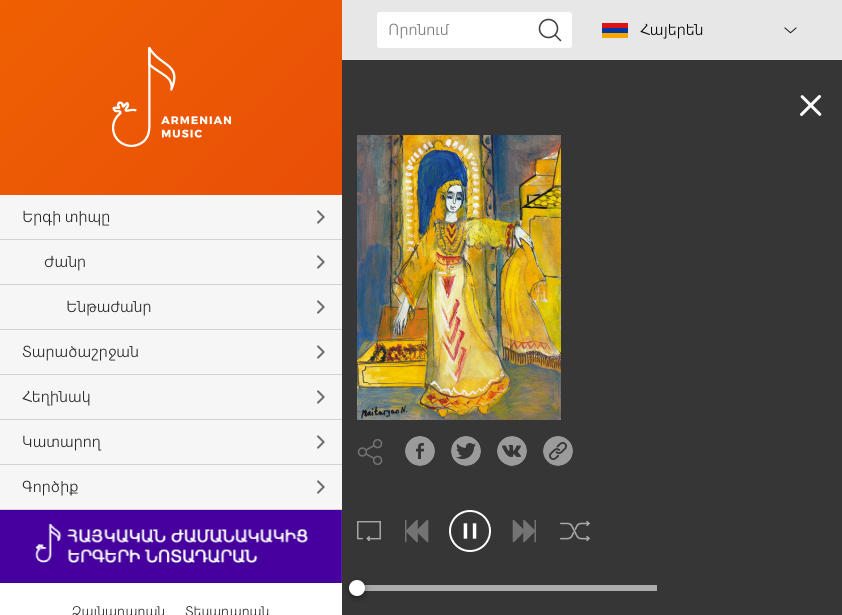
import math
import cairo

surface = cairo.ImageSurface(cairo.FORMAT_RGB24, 842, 615)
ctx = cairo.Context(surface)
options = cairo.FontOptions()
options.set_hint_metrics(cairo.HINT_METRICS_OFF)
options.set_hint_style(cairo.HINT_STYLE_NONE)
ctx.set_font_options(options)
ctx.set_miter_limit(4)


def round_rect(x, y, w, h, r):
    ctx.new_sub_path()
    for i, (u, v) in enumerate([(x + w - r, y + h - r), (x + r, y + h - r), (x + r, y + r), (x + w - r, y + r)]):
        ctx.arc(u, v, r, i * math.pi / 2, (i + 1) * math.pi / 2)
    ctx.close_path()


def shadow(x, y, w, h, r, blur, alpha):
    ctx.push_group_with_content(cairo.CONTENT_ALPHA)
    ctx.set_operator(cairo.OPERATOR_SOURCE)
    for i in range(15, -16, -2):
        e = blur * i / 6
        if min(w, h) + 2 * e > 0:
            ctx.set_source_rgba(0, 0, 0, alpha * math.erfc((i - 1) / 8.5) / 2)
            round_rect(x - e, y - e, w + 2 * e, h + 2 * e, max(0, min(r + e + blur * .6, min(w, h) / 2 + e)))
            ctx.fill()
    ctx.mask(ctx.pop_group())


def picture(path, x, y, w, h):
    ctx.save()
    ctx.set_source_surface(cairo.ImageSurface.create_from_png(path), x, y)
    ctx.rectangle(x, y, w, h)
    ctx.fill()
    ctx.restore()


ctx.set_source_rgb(1, 1, 1)
ctx.paint()
ctx.set_source_rgb(0.906, 0.906, 0.906)
ctx.rectangle(342, 0, 500, 60)
ctx.fill()
ctx.set_source_rgb(1, 1, 1)
round_rect(377.5, 12.5, 194, 35, 2.5)
ctx.fill_preserve()
ctx.set_line_width(1)
ctx.stroke()
ctx.select_font_face("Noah")
ctx.set_font_size(16)
ctx.set_source_rgb(0.459, 0.459, 0.459)
ctx.move_to(388, 35)
ctx.show_text("Որոնում")
picture("img1.png", 538, 18, 24, 24)
picture("img2.png", 602, 23, 26, 15)
ctx.set_source_rgb(0, 0, 0)
ctx.move_to(640, 35)
ctx.show_text("Հայերեն")
picture("img3.png", 784, 27, 13, 7)
gradient = cairo.LinearGradient(410, 547, -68, 68)
gradient.add_color_stop_rgba(0, 0.894, 0.259, 0.047, 1)
gradient.add_color_stop_rgba(1, 0.937, 0.376, 0.008, 1)
ctx.set_source(gradient)
ctx.rectangle(0, 0, 342, 195)
ctx.fill()
picture("img4.png", 112, 47, 119, 100)
ctx.set_source_rgb(0.961, 0.961, 0.961)
ctx.rectangle(0, 195, 342, 388)
ctx.fill()
ctx.set_source_rgb(0.827, 0.827, 0.827)
ctx.rectangle(0, 239, 342, 1)
ctx.fill()
ctx.set_source_rgb(0.141, 0.141, 0.141)
ctx.move_to(22, 222)
ctx.show_text("Երգի տիպը")
picture("img5.png", 317, 210, 8, 14)
ctx.set_source_rgb(0.827, 0.827, 0.827)
ctx.rectangle(0, 284, 342, 1)
ctx.fill()
ctx.set_source_rgb(0.141, 0.141, 0.141)
ctx.move_to(44, 267)
ctx.show_text("Ժանր")
picture("img5.png", 317, 255, 8, 14)
ctx.set_source_rgb(0.827, 0.827, 0.827)
ctx.rectangle(0, 329, 342, 1)
ctx.fill()
ctx.set_source_rgb(0.141, 0.141, 0.141)
ctx.move_to(66, 312)
ctx.show_text("Ենթաժանր")
picture("img5.png", 317, 300, 8, 14)
ctx.set_source_rgb(0.827, 0.827, 0.827)
ctx.rectangle(0, 374, 342, 1)
ctx.fill()
ctx.set_source_rgb(0.141, 0.141, 0.141)
ctx.move_to(22, 357)
ctx.show_text("Տարածաշրջան")
picture("img5.png", 317, 345, 8, 14)
ctx.set_source_rgb(0.827, 0.827, 0.827)
ctx.rectangle(0, 419, 342, 1)
ctx.fill()
ctx.set_source_rgb(0.141, 0.141, 0.141)
ctx.move_to(22, 402)
ctx.show_text("Հեղինակ")
picture("img5.png", 317, 390, 8, 14)
ctx.set_source_rgb(0.827, 0.827, 0.827)
ctx.rectangle(0, 464, 342, 1)
ctx.fill()
ctx.set_source_rgb(0.141, 0.141, 0.141)
ctx.move_to(22, 447)
ctx.show_text("Կատարող")
picture("img5.png", 317, 435, 8, 14)
ctx.set_source_rgb(0.827, 0.827, 0.827)
ctx.rectangle(0, 509, 342, 1)
ctx.fill()
ctx.set_source_rgb(0.141, 0.141, 0.141)
ctx.move_to(22, 492)
ctx.show_text("Գործիք")
picture("img5.png", 317, 480, 8, 14)
picture("img6.png", 0, 510, 342, 73)
ctx.set_font_size(14)
ctx.move_to(72, 616)
ctx.show_text("Ձայնադարան")
ctx.move_to(185, 616)
ctx.show_text("Տեսադարան")
ctx.set_source_rgb(0.212, 0.212, 0.212)
ctx.rectangle(342, 60, 500, 555)
ctx.fill()
picture("img7.png", 357, 135, 204, 285)
picture("img8.png", 357, 439, 26, 26)
picture("img9.png", 405, 436, 30, 30)
picture("img10.png", 451, 436, 30, 30)
picture("img11.png", 497, 436, 30, 30)
picture("img12.png", 543, 436, 30, 30)
picture("img13.png", 800, 95, 22, 21)
picture("img14.png", 357, 521, 24, 20)
picture("img15.png", 405, 519, 24, 24)
picture("img16.png", 449, 510, 42, 42)
picture("img17.png", 512, 519, 24, 24)
picture("img18.png", 560, 521, 30, 20)
ctx.set_source_rgb(0.671, 0.671, 0.671)
ctx.rectangle(357, 585, 300, 6)
ctx.fill()
ctx.set_source_rgb(0, 0, 0)
shadow(349, 582, 16, 16, 8, 3, 0.4)
ctx.set_source_rgb(1, 1, 1)
ctx.arc(357, 588, 8, 0, 2 * math.pi)
ctx.fill()
surface.write_to_png("page.png")
